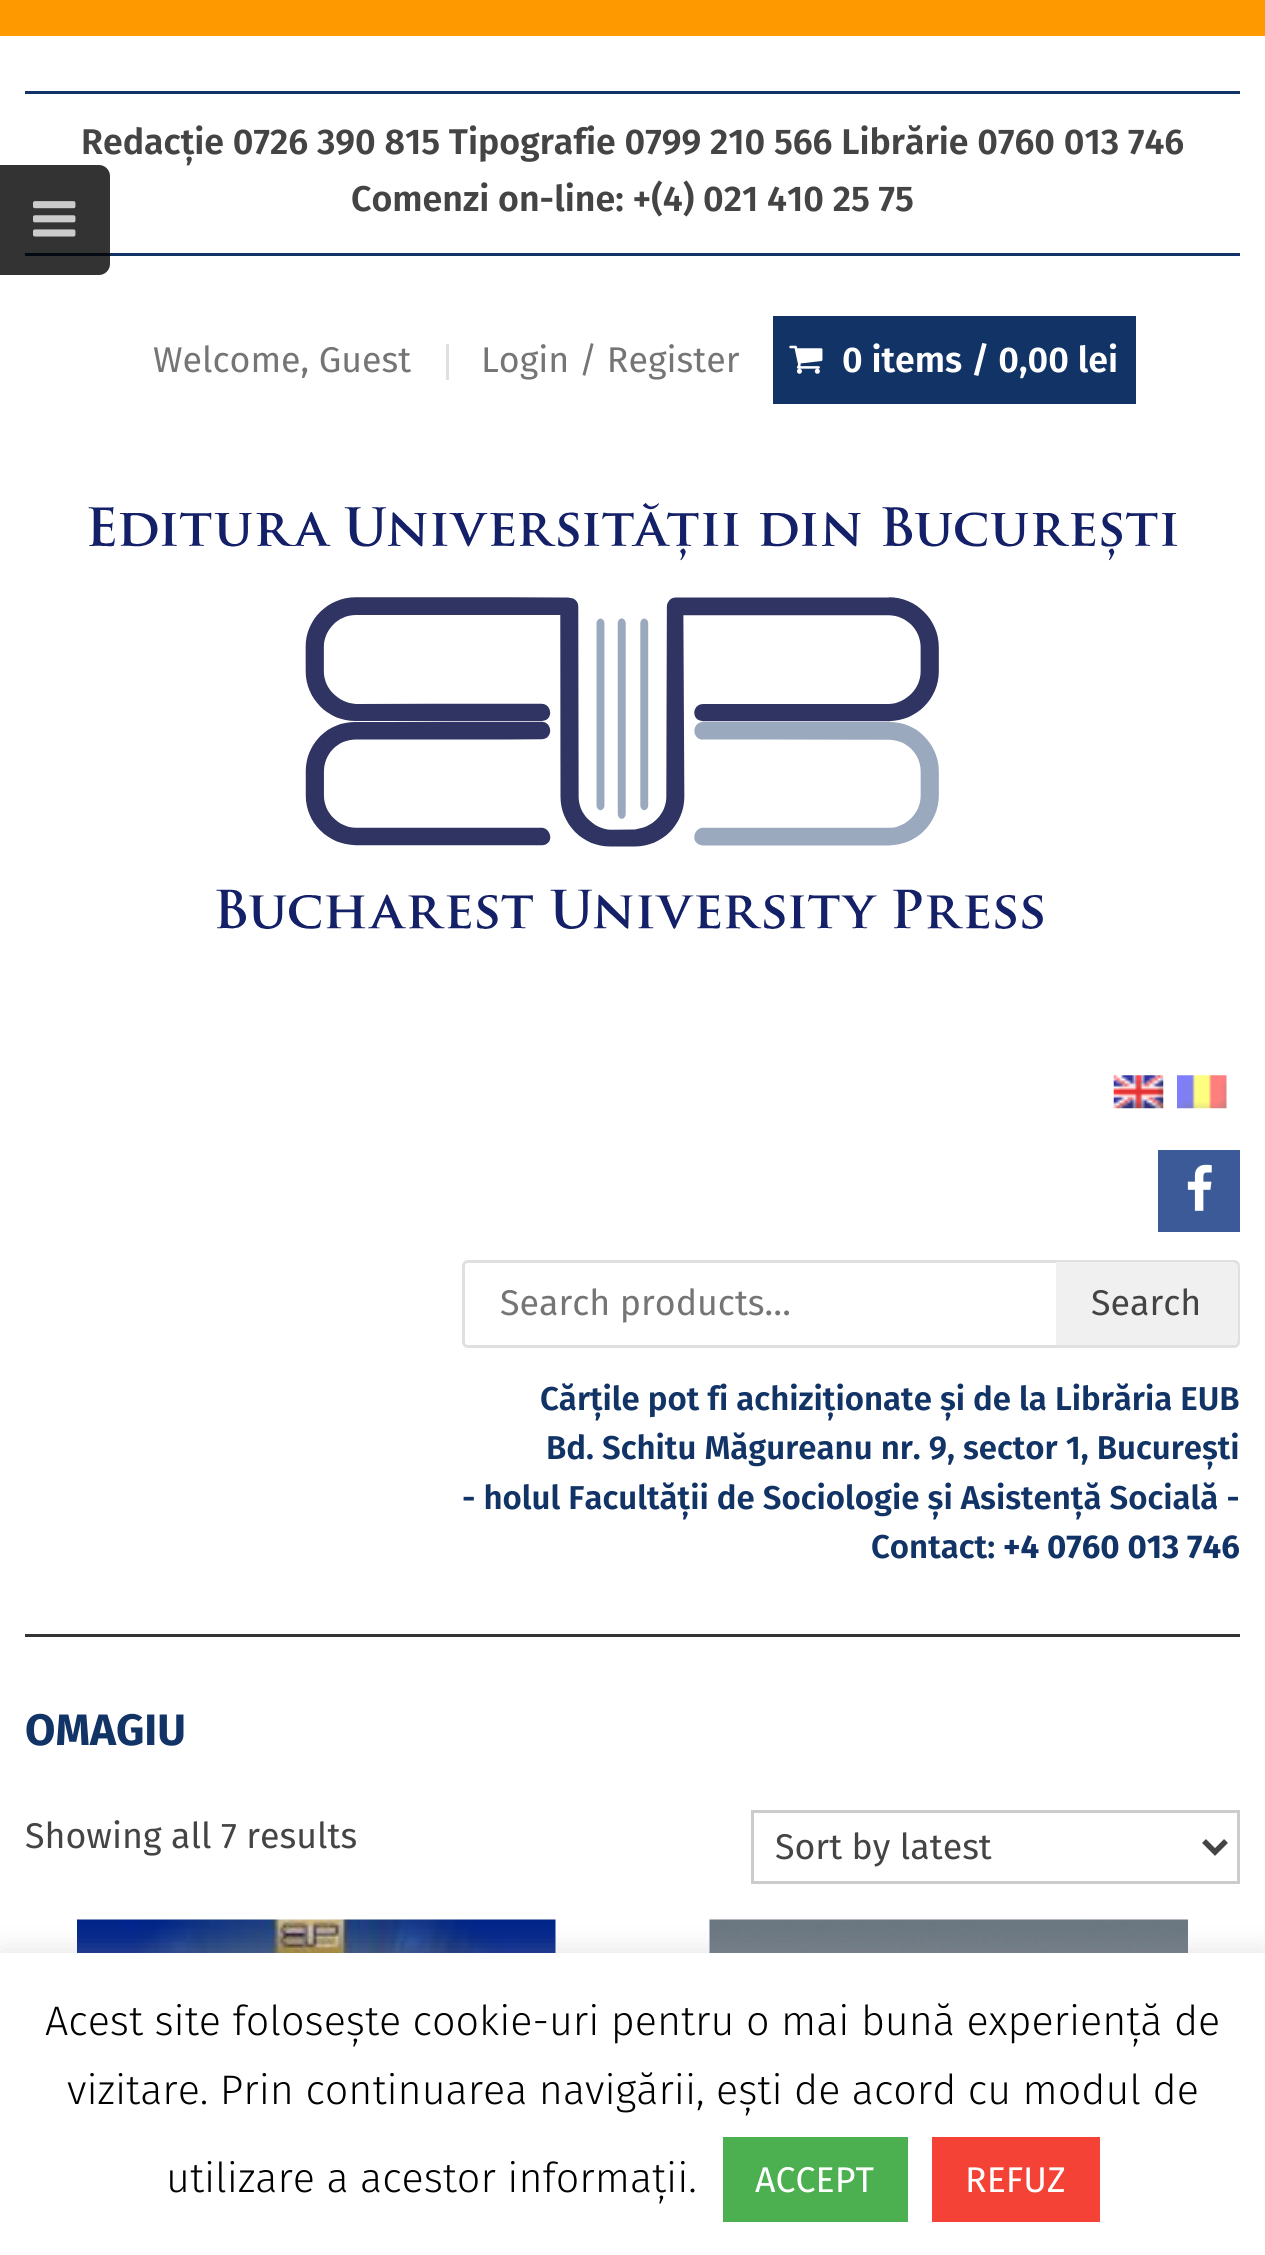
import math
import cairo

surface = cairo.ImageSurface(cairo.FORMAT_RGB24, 1265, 2255)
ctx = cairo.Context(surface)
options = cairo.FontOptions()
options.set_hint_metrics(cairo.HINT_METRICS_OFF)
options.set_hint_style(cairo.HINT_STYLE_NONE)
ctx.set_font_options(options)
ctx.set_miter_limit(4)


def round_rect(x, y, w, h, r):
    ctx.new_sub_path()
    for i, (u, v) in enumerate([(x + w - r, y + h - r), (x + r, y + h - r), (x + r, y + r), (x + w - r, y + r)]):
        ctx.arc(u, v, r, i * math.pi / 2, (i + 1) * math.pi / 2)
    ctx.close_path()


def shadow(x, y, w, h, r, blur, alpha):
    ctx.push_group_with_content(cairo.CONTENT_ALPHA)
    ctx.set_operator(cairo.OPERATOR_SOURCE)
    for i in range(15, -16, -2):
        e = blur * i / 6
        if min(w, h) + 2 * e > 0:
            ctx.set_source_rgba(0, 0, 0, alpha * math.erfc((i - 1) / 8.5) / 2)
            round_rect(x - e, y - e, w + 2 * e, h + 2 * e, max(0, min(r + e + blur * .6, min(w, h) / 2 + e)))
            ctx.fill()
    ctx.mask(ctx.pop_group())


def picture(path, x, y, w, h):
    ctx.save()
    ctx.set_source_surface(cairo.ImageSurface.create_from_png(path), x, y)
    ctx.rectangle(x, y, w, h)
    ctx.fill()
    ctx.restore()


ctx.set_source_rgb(1, 1, 1)
ctx.paint()
ctx.set_source_rgb(1, 0.6, 0)
ctx.rectangle(0, 0, 1265, 36)
ctx.fill()
ctx.set_source_rgb(0.067, 0.2, 0.4)
ctx.rectangle(25, 253, 1215, 3)
ctx.fill()
ctx.select_font_face("Fira Sans SemiBold")
ctx.set_font_size(35.75)
ctx.set_source_rgb(0.267, 0.267, 0.267)
ctx.move_to(81, 154)
ctx.show_text("Redacție 0726 390 815 Tipografie 0799 210 566 Librărie 0760 013 746")
ctx.set_source_rgba(0, 0, 0, 0.8)
ctx.new_path()
ctx.move_to(0, 165)
ctx.line_to(99, 165)
ctx.curve_to(105, 165, 110, 170, 110, 176)
ctx.line_to(110, 264)
ctx.curve_to(110, 270, 105, 275, 99, 275)
ctx.line_to(0, 275)
ctx.close_path()
ctx.fill()
picture("img1.png", 33, 201, 43, 36)
ctx.set_source_rgb(0.067, 0.2, 0.4)
ctx.rectangle(25, 91, 1215, 3)
ctx.fill()
ctx.set_source_rgb(0.267, 0.267, 0.267)
ctx.move_to(351, 211)
ctx.show_text("Comenzi on-line: +(4) 021 410 25 75")
ctx.select_font_face("Fira Sans")
ctx.set_source_rgb(0.459, 0.459, 0.459)
ctx.move_to(153, 372)
ctx.show_text("Welcome, Guest")
ctx.set_source_rgb(0.878, 0.878, 0.878)
ctx.rectangle(446, 344, 3, 36)
ctx.fill()
ctx.set_source_rgb(0.459, 0.459, 0.459)
ctx.move_to(481, 372)
ctx.show_text("Login / Register")
ctx.set_source_rgb(0.067, 0.2, 0.4)
ctx.rectangle(773, 316, 363, 88)
ctx.fill()
picture("img2.png", 789, 345, 34, 29)
ctx.select_font_face("Fira Sans SemiBold")
ctx.set_source_rgb(1, 1, 1)
ctx.move_to(842, 372)
ctx.show_text("0 items / 0,00 lei")
picture("img3.png", 88, 503, 1090, 426)
picture("img4.png", 1113, 1075, 51, 34)
picture("img5.png", 1177, 1075, 50, 34)
ctx.set_source_rgb(0.235, 0.353, 0.596)
ctx.rectangle(1158, 1150, 82, 82)
ctx.fill()
picture("img6.png", 1187, 1164, 25, 47)
round_rect(463.5, 1261.5, 775, 85, 4.5)
ctx.set_source_rgb(0.878, 0.878, 0.878)
ctx.set_line_width(3)
ctx.stroke()
ctx.select_font_face("Fira Sans")
ctx.set_source_rgb(0.459, 0.459, 0.459)
ctx.move_to(500, 1315)
ctx.show_text("Search products…")
ctx.set_source_rgb(0.941, 0.941, 0.941)
ctx.new_path()
ctx.move_to(1056, 1262)
ctx.line_to(1232, 1262)
ctx.curve_to(1235.5, 1262, 1238, 1264.5, 1238, 1268)
ctx.line_to(1238, 1339)
ctx.curve_to(1238, 1342.5, 1235.5, 1345, 1232, 1345)
ctx.line_to(1056, 1345)
ctx.close_path()
ctx.fill()
ctx.set_source_rgb(0.267, 0.267, 0.267)
ctx.move_to(1091, 1315)
ctx.show_text("Search")
ctx.select_font_face("Fira Sans SemiBold")
ctx.set_font_size(33)
ctx.set_source_rgb(0.067, 0.2, 0.4)
ctx.move_to(540, 1410)
ctx.show_text("Cărțile pot fi achiziționate și de la Librăria EUB")
ctx.move_to(546, 1459)
ctx.show_text("Bd. Schitu Măgureanu nr. 9, sector 1, București")
ctx.move_to(462, 1509)
ctx.show_text("- holul Facultății de Sociologie și Asistență Socială -")
ctx.move_to(871, 1558)
ctx.show_text("Contact:")
ctx.select_font_face("Fira Sans", cairo.FONT_SLANT_NORMAL, cairo.FONT_WEIGHT_BOLD)
ctx.move_to(1003, 1558)
ctx.show_text("+4 0760 013 746")
ctx.set_source_rgb(0.2, 0.2, 0.2)
ctx.rectangle(25, 1634, 1215, 3)
ctx.fill()
ctx.set_font_size(44)
ctx.set_source_rgb(0.067, 0.2, 0.4)
ctx.move_to(25, 1745)
ctx.show_text("OMAGIU")
ctx.select_font_face("Fira Sans")
ctx.set_font_size(35.75)
ctx.set_source_rgb(0.267, 0.267, 0.267)
ctx.move_to(25, 1848)
ctx.show_text("Showing all 7 results")
ctx.rectangle(752.5, 1811.5, 486, 71)
ctx.set_source_rgb(0.8, 0.8, 0.8)
ctx.stroke()
ctx.new_path()
ctx.move_to(1204, 1841)
ctx.line_to(1215, 1852)
ctx.line_to(1226, 1841)
ctx.set_source_rgb(0.267, 0.267, 0.267)
ctx.set_line_width(5.5)
ctx.stroke()
ctx.move_to(775, 1859)
ctx.show_text("Sort by latest")
picture("img7.png", 77, 1919, 479, 34)
picture("img8.png", 709, 1919, 479, 34)
ctx.set_source_rgb(0.675, 0.671, 0.671)
shadow(0, 1950, 1265, 302, 0, 14, 0.3)
ctx.set_source_rgb(1, 1, 1)
ctx.rectangle(0, 1953, 1265, 302)
ctx.fill()
ctx.select_font_face("Fira Sans Light")
ctx.set_font_size(41.25)
ctx.set_source_rgb(0, 0, 0)
ctx.move_to(45, 2035)
ctx.show_text("Acest site folosește cookie-uri pentru o mai bună experiență de")
ctx.move_to(67, 2104)
ctx.show_text("vizitare. Prin continuarea navigării, ești de acord cu modul de")
ctx.move_to(166, 2192)
ctx.show_text("utilizare a acestor informații.")
ctx.set_source_rgb(0.298, 0.686, 0.314)
ctx.rectangle(723, 2137, 185, 85)
ctx.fill()
ctx.select_font_face("Fira Sans")
ctx.set_font_size(35.75)
ctx.set_source_rgb(1, 1, 1)
ctx.move_to(755, 2192)
ctx.show_text("ACCEPT")
ctx.set_source_rgb(0.957, 0.263, 0.212)
ctx.rectangle(932, 2137, 168, 85)
ctx.fill()
ctx.set_source_rgb(1, 1, 1)
ctx.move_to(965, 2192)
ctx.show_text("REFUZ")
surface.write_to_png("page.png")
